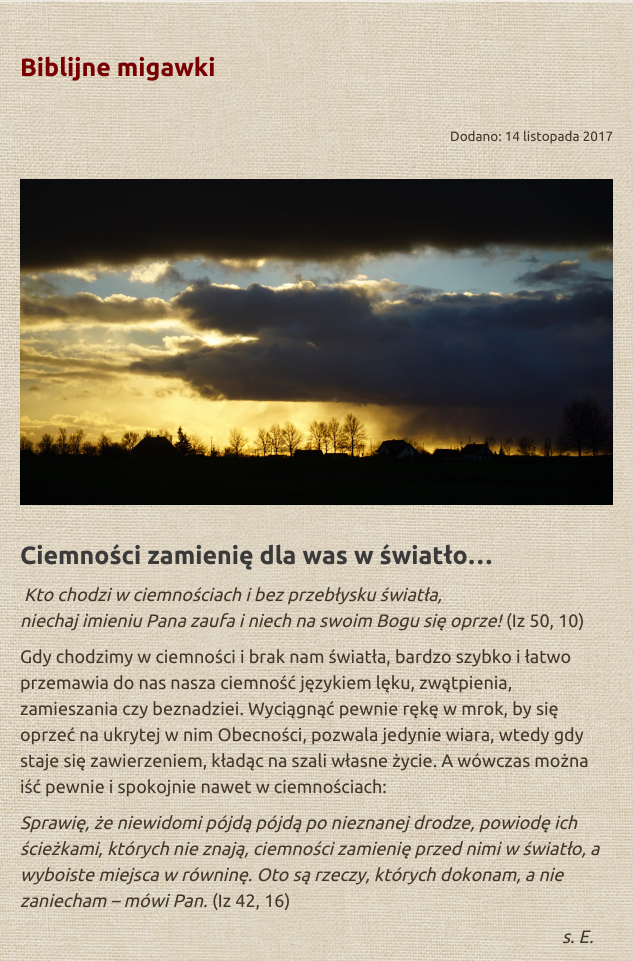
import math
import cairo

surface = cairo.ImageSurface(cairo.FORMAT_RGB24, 633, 961)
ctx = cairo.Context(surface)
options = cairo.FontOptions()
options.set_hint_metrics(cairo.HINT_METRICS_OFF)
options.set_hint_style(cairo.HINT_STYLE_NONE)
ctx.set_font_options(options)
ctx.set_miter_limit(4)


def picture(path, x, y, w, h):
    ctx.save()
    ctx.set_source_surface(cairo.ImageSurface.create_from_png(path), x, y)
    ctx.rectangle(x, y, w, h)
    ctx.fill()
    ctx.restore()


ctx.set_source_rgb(1, 1, 1)
ctx.paint()
picture("img1.png", 0, 2, 633, 959)
picture("img2.png", 0, 0, 633, 2)
ctx.select_font_face("Ubuntu", cairo.FONT_SLANT_NORMAL, cairo.FONT_WEIGHT_BOLD)
ctx.set_font_size(25)
ctx.set_source_rgb(0.475, 0, 0)
ctx.move_to(20, 76)
ctx.show_text("Biblijne migawki")
ctx.select_font_face("Ubuntu")
ctx.set_font_size(13.5)
ctx.set_source_rgb(0.263, 0.216, 0.173)
ctx.move_to(450, 141)
ctx.show_text("Dodano: 14 listopada 2017")
picture("img3.png", 20, 179, 593, 326)
ctx.select_font_face("Ubuntu", cairo.FONT_SLANT_NORMAL, cairo.FONT_WEIGHT_BOLD)
ctx.set_font_size(25)
ctx.set_source_rgb(0.227, 0.227, 0.227)
ctx.move_to(20, 564)
ctx.show_text("Ciemności zamienię dla was w światło…")
ctx.select_font_face("Ubuntu", cairo.FONT_SLANT_ITALIC)
ctx.set_font_size(18)
ctx.set_source_rgb(0.263, 0.216, 0.173)
ctx.move_to(24, 601)
ctx.show_text("Kto chodzi w ciemnościach i bez przebłysku światła,")
ctx.move_to(20, 627)
ctx.show_text("niechaj imieniu Pana zaufa i niech na swoim Bogu się oprze!")
ctx.select_font_face("Ubuntu")
ctx.move_to(506, 627)
ctx.show_text("(Iz 50, 10)")
ctx.move_to(20, 663)
ctx.show_text("Gdy chodzimy w ciemności i brak nam światła, bardzo szybko i łatwo")
ctx.move_to(20, 689)
ctx.show_text("przemawia do nas nasza ciemność językiem lęku, zwątpienia,")
ctx.move_to(20, 715)
ctx.show_text("zamieszania czy beznadziei. Wyciągnąć pewnie rękę w mrok, by się")
ctx.move_to(20, 741)
ctx.show_text("oprzeć na ukrytej w nim Obecności, pozwala jedynie wiara, wtedy gdy")
ctx.move_to(20, 767)
ctx.show_text("staje się zawierzeniem, kładąc na szali własne życie. A wówczas można")
ctx.move_to(20, 793)
ctx.show_text("iść pewnie i spokojnie nawet w ciemnościach:")
ctx.select_font_face("Ubuntu", cairo.FONT_SLANT_ITALIC)
ctx.move_to(20, 829)
ctx.show_text("Sprawię, że niewidomi pójdą pójdą po nieznanej drodze, powiodę ich")
ctx.move_to(20, 855)
ctx.show_text("ścieżkami, których nie znają, ciemności zamienię przed nimi w światło, a")
ctx.move_to(20, 881)
ctx.show_text("wyboiste miejsca w równinę. Oto są rzeczy, których dokonam, a nie")
ctx.move_to(20, 907)
ctx.show_text("zaniecham – mówi Pan.")
ctx.select_font_face("Ubuntu")
ctx.move_to(212, 907)
ctx.show_text("(Iz 42, 16)")
ctx.select_font_face("Ubuntu", cairo.FONT_SLANT_ITALIC)
ctx.move_to(562, 943)
ctx.show_text("s. E.")
surface.write_to_png("page.png")
